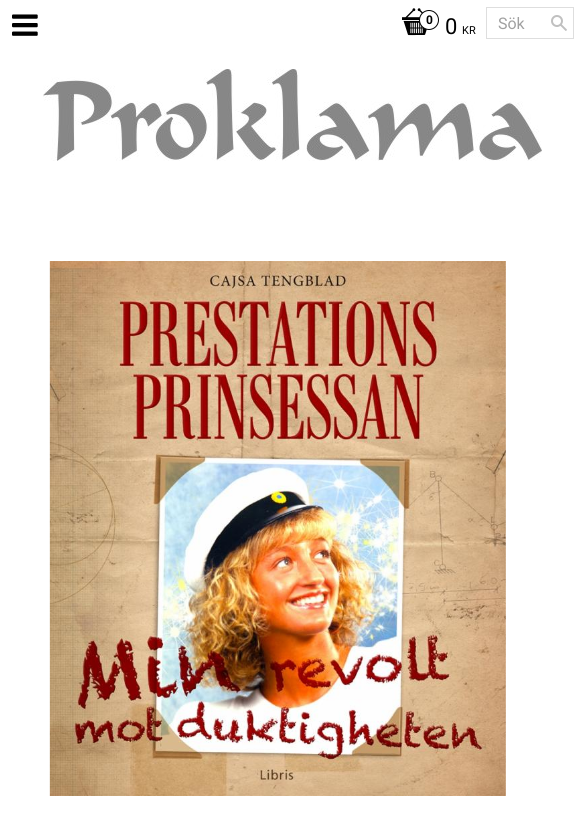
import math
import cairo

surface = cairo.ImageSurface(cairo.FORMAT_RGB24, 584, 822)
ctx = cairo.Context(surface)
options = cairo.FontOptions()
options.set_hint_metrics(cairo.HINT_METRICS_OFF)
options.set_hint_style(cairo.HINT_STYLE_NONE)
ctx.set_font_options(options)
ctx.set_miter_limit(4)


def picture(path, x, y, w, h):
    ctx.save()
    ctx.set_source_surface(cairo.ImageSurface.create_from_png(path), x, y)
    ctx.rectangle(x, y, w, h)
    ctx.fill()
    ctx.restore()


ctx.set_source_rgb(1, 1, 1)
ctx.paint()
picture("img1.png", 12, 14, 26, 22)
picture("img2.png", 402, 8, 25, 28)
ctx.set_source_rgb(1, 1, 1)
ctx.arc(429, 20, 9.5, 0, 2 * math.pi)
ctx.fill_preserve()
ctx.set_source_rgb(0, 0, 0)
ctx.set_line_width(1)
ctx.stroke()
ctx.select_font_face("Roboto", cairo.FONT_SLANT_NORMAL, cairo.FONT_WEIGHT_BOLD)
ctx.set_font_size(12)
ctx.move_to(426, 24)
ctx.show_text("0")
ctx.select_font_face("Roboto")
ctx.set_font_size(22)
ctx.move_to(445, 34)
ctx.show_text("0")
ctx.set_font_size(11)
ctx.move_to(462, 34)
ctx.show_text("KR")
ctx.rectangle(486.5, 7.5, 87, 31)
ctx.set_source_rgb(0.871, 0.871, 0.871)
ctx.stroke()
ctx.set_font_size(16)
ctx.set_source_rgb(0.627, 0.627, 0.627)
ctx.move_to(498, 29)
ctx.show_text("Sök")
picture("img3.png", 551, 15, 16, 16)
picture("img4.png", 43, 69, 499, 92)
picture("img5.png", 49, 261, 457, 535)
surface.write_to_png("page.png")
